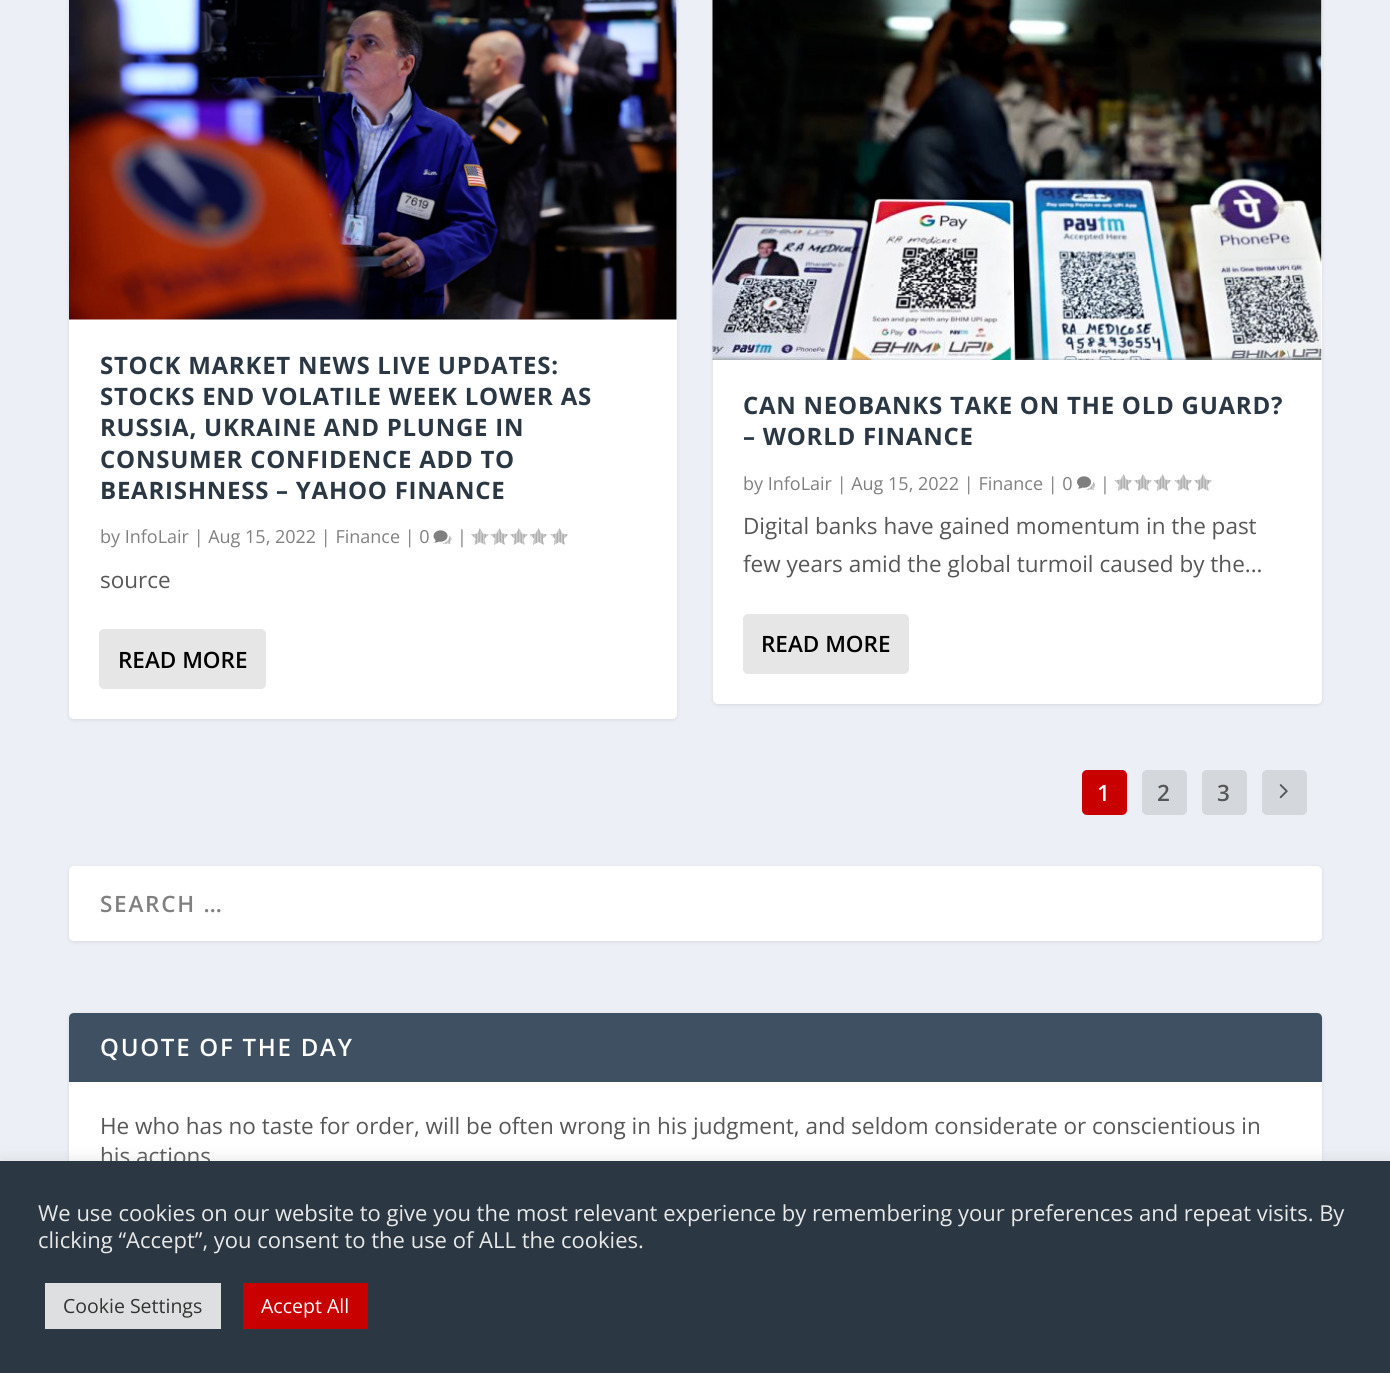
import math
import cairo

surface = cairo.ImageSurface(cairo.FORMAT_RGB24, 1390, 1373)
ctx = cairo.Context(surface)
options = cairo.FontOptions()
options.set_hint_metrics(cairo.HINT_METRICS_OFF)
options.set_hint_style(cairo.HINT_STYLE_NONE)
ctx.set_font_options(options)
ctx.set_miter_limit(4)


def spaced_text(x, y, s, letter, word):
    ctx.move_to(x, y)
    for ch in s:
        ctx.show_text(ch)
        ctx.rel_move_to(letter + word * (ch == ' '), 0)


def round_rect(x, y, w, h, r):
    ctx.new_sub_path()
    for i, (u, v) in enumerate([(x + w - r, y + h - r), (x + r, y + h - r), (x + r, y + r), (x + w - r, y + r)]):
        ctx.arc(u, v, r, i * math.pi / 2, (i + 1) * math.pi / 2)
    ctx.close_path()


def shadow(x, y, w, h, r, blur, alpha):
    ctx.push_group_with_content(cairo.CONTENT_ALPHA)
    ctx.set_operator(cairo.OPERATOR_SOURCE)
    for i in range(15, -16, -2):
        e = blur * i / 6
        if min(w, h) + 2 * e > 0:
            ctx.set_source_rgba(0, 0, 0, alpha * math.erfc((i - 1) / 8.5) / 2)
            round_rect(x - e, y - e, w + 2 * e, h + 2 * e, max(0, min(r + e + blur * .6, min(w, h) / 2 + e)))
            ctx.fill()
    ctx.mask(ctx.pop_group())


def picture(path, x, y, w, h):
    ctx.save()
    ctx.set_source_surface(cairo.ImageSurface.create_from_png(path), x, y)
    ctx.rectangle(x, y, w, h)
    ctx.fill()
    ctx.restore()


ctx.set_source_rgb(0.925, 0.941, 0.961)
ctx.paint()
ctx.set_source_rgb(0, 0, 0)
shadow(69, -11, 608, 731, 5, 2, 0.1)
ctx.set_source_rgb(1, 1, 1)
round_rect(69, -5, 608, 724, 5)
ctx.fill()
picture("img1.png", 69, 0, 608, 320)
ctx.select_font_face("Open Sans", cairo.FONT_SLANT_NORMAL, cairo.FONT_WEIGHT_BOLD)
ctx.set_font_size(24)
ctx.set_source_rgb(0.169, 0.22, 0.263)
spaced_text(100, 374, "STOCK MARKET NEWS LIVE UPDATES:", 0.75, 0)
spaced_text(100, 405, "STOCKS END VOLATILE WEEK LOWER AS", 0.75, 0)
spaced_text(100, 436, "RUSSIA, UKRAINE AND PLUNGE IN", 0.75, 0)
spaced_text(100, 468, "CONSUMER CONFIDENCE ADD TO", 0.75, 0)
spaced_text(100, 499, "BEARISHNESS – YAHOO FINANCE", 0.75, 0)
ctx.select_font_face("Open Sans")
ctx.set_font_size(18)
ctx.set_source_rgb(0.502, 0.502, 0.502)
ctx.move_to(100, 543)
ctx.show_text("by InfoLair | Aug 15, 2022 | Finance | 0")
picture("img2.png", 433, 530, 19, 14)
ctx.move_to(457, 543)
ctx.show_text("|")
picture("img3.png", 471, 528, 18, 17)
picture("img4.png", 490, 528, 19, 17)
picture("img3.png", 510, 528, 18, 17)
picture("img4.png", 529, 528, 19, 17)
picture("img4.png", 550, 528, 19, 17)
ctx.set_font_size(22.5)
ctx.set_source_rgb(0.341, 0.341, 0.341)
ctx.move_to(100, 588)
ctx.show_text("source")
ctx.set_source_rgb(0.902, 0.902, 0.902)
round_rect(99, 629, 167, 60, 5)
ctx.fill()
ctx.select_font_face("Open Sans SemiBold")
ctx.set_source_rgb(0, 0, 0)
ctx.move_to(118, 668)
ctx.show_text("READ MORE")
ctx.set_source_rgb(0, 0, 0)
shadow(713, -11, 609, 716, 5, 2, 0.1)
ctx.set_source_rgb(1, 1, 1)
round_rect(713, -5, 609, 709, 5)
ctx.fill()
picture("img5.png", 712, 0, 610, 360)
ctx.select_font_face("Open Sans", cairo.FONT_SLANT_NORMAL, cairo.FONT_WEIGHT_BOLD)
ctx.set_font_size(24)
ctx.set_source_rgb(0.169, 0.22, 0.263)
spaced_text(743, 414, "CAN NEOBANKS TAKE ON THE OLD GUARD?", 0.75, 0)
spaced_text(743, 445, "– WORLD FINANCE", 0.75, 0)
ctx.select_font_face("Open Sans")
ctx.set_font_size(18)
ctx.set_source_rgb(0.502, 0.502, 0.502)
ctx.move_to(743, 490)
ctx.show_text("by InfoLair | Aug 15, 2022 | Finance | 0")
picture("img6.png", 1077, 476, 18, 14)
ctx.move_to(1100, 490)
ctx.show_text("|")
picture("img4.png", 1114, 474, 19, 17)
picture("img3.png", 1134, 474, 18, 17)
picture("img4.png", 1153, 474, 19, 17)
picture("img4.png", 1174, 474, 19, 17)
picture("img3.png", 1194, 474, 18, 17)
ctx.set_font_size(22.5)
ctx.set_source_rgb(0.341, 0.341, 0.341)
ctx.move_to(743, 534)
ctx.show_text("Digital banks have gained momentum in the past")
ctx.move_to(743, 572)
ctx.show_text("few years amid the global turmoil caused by the...")
ctx.set_source_rgb(0.902, 0.902, 0.902)
round_rect(743, 614, 166, 60, 5)
ctx.fill()
ctx.select_font_face("Open Sans SemiBold")
ctx.set_source_rgb(0, 0, 0)
ctx.move_to(761, 652)
ctx.show_text("READ MORE")
ctx.set_source_rgb(0.788, 0, 0)
round_rect(1082, 770, 45, 45, 5)
ctx.fill()
ctx.set_source_rgb(1, 1, 1)
ctx.move_to(1097, 801)
ctx.show_text("1")
ctx.set_source_rgb(0.831, 0.847, 0.867)
round_rect(1142, 770, 45, 45, 5)
ctx.fill()
ctx.set_source_rgb(0.341, 0.341, 0.341)
ctx.move_to(1157, 801)
ctx.show_text("2")
ctx.set_source_rgb(0.831, 0.847, 0.867)
round_rect(1202, 770, 45, 45, 5)
ctx.fill()
ctx.set_source_rgb(0.341, 0.341, 0.341)
ctx.move_to(1217, 801)
ctx.show_text("3")
ctx.set_source_rgb(0.831, 0.847, 0.867)
round_rect(1262, 770, 45, 45, 5)
ctx.fill()
picture("img7.png", 1279, 784, 9, 15)
ctx.set_source_rgb(0, 0, 0)
shadow(69, 867, 1253, 75, 5, 2, 0.1)
ctx.set_source_rgb(1, 1, 1)
round_rect(69, 866, 1253, 75, 5)
ctx.fill()
ctx.set_source_rgb(0.502, 0.502, 0.502)
spaced_text(100, 912, "SEARCH …", 1.75, 0)
ctx.set_source_rgb(0, 0, 0)
shadow(69, 1014, 1253, 246, 5, 2, 0.1)
ctx.set_source_rgb(1, 1, 1)
round_rect(69, 1013, 1253, 246, 5)
ctx.fill()
ctx.set_source_rgb(0.243, 0.314, 0.384)
ctx.new_path()
ctx.move_to(74, 1013)
ctx.line_to(1317, 1013)
ctx.curve_to(1320, 1013, 1322, 1015, 1322, 1018)
ctx.line_to(1322, 1082)
ctx.line_to(69, 1082)
ctx.line_to(69, 1018)
ctx.curve_to(69, 1015, 71, 1013, 74, 1013)
ctx.close_path()
ctx.fill()
ctx.set_font_size(24)
ctx.set_source_rgb(1, 1, 1)
spaced_text(100, 1056, "QUOTE OF THE DAY", 1.75, 0)
ctx.select_font_face("Open Sans")
ctx.set_font_size(22.5)
ctx.set_source_rgb(0.341, 0.341, 0.341)
ctx.move_to(100, 1134)
ctx.show_text("He who has no taste for order, will be often wrong in his judgment, and seldom considerate or conscientious in")
ctx.move_to(100, 1164)
ctx.show_text("his actions")
ctx.set_source_rgb(0.675, 0.671, 0.671)
shadow(0, 1160, 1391, 213, 0, 7.5, 0.3)
ctx.set_source_rgb(0.169, 0.22, 0.263)
ctx.rectangle(0, 1161, 1390, 212)
ctx.fill()
ctx.set_font_size(22)
ctx.set_source_rgb(0.91, 0.91, 0.91)
ctx.move_to(38, 1221)
ctx.show_text("We use cookies on our website to give you the most relevant experience by remembering your preferences and repeat visits. By")
ctx.move_to(38, 1248)
ctx.show_text("clicking “Accept”, you consent to the use of ALL the cookies.")
ctx.set_source_rgb(0.871, 0.875, 0.878)
ctx.rectangle(45, 1283, 176, 46)
ctx.fill()
ctx.set_font_size(19.5)
ctx.set_source_rgb(0.2, 0.2, 0.2)
ctx.move_to(63, 1313)
ctx.show_text("Cookie Settings")
ctx.set_source_rgb(0.788, 0, 0)
ctx.rectangle(243, 1283, 125, 46)
ctx.fill()
ctx.set_source_rgb(1, 1, 1)
ctx.move_to(261, 1313)
ctx.show_text("Accept All")
surface.write_to_png("page.png")
